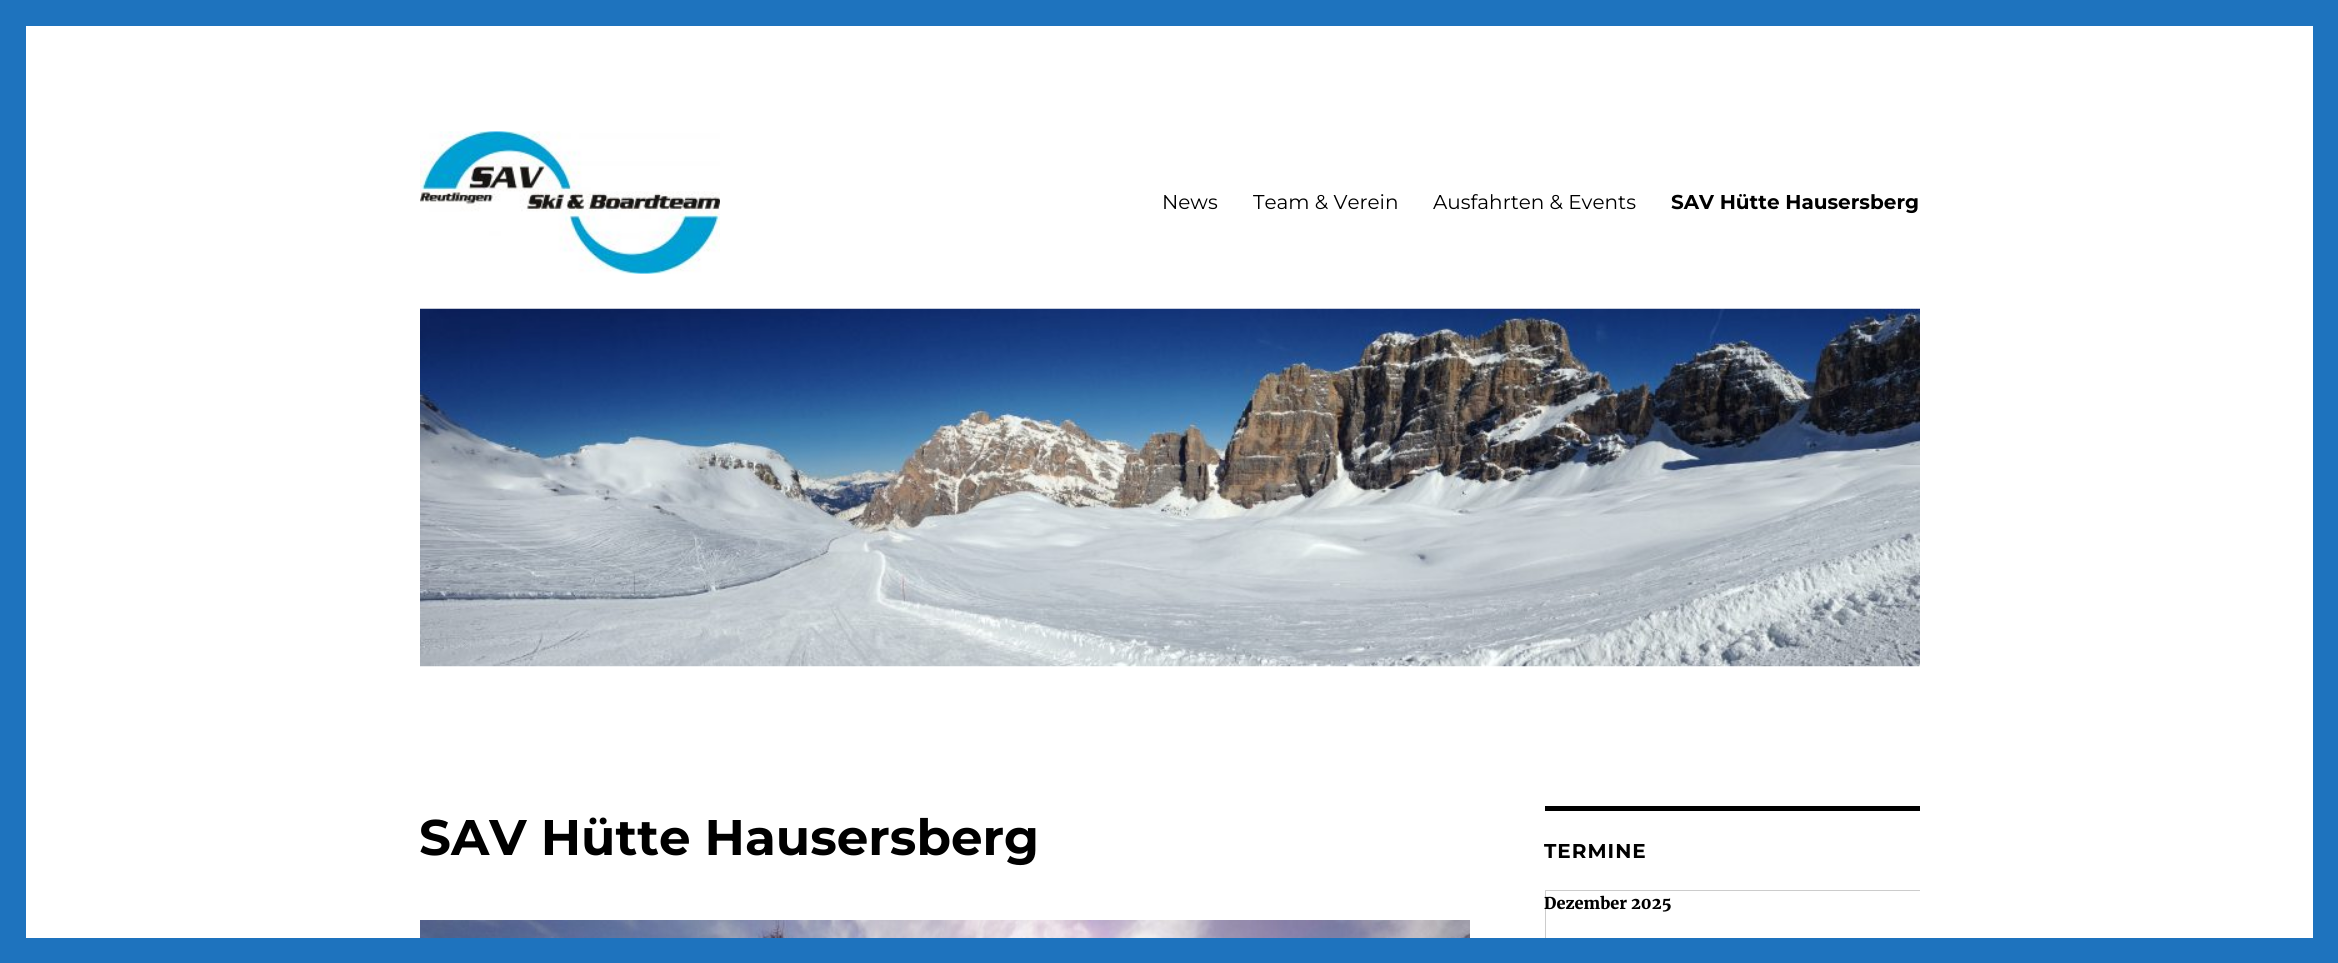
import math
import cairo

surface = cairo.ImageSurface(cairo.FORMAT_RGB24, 2338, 963)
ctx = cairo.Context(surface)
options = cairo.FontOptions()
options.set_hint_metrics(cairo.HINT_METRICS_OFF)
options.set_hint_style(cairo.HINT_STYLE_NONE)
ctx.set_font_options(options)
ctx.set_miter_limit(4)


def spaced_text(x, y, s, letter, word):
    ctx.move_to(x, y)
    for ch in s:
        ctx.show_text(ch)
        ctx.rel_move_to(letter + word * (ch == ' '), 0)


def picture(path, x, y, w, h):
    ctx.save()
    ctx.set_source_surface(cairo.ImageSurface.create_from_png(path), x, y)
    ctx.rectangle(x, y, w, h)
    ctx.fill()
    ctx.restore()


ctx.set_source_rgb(0.118, 0.451, 0.745)
ctx.paint()
ctx.set_source_rgb(1, 1, 1)
ctx.rectangle(26, 26, 2287, 912)
ctx.fill()
picture("img1.png", 420, 131, 300, 143)
ctx.select_font_face("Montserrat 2 Thin")
ctx.set_font_size(20)
ctx.set_source_rgb(0, 0, 0)
ctx.move_to(1162, 209)
ctx.show_text("News")
ctx.move_to(1253, 209)
ctx.show_text("Team & Verein")
ctx.move_to(1433, 209)
ctx.show_text("Ausfahrten & Events")
ctx.select_font_face("Montserrat Thin")
ctx.move_to(1671, 209)
ctx.show_text("SAV Hütte Hausersberg")
picture("img2.png", 420, 308, 1500, 359)
ctx.set_font_size(50)
ctx.move_to(419, 855)
ctx.show_text("SAV Hütte Hausersberg")
picture("img3.png", 420, 920, 1050, 18)
ctx.rectangle(1545, 806, 375, 5)
ctx.fill()
ctx.set_font_size(20)
spaced_text(1544, 858, "TERMINE", 1, 0)
ctx.set_source_rgb(0.8, 0.8, 0.8)
ctx.new_path()
ctx.move_to(1545, 890)
ctx.line_to(1920, 890)
ctx.line_to(1920, 891)
ctx.line_to(1546, 891)
ctx.close_path()
ctx.fill()
ctx.set_source_rgba(0, 0, 0, 0.2)
ctx.new_path()
ctx.move_to(1545, 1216)
ctx.line_to(1545, 890)
ctx.line_to(1546, 891)
ctx.line_to(1546, 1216)
ctx.close_path()
ctx.fill()
ctx.select_font_face("Merriweather Black")
ctx.set_font_size(16.25)
ctx.set_source_rgb(0, 0, 0)
ctx.move_to(1544, 909)
ctx.show_text("Dezember 2025")
ctx.set_source_rgb(0.118, 0.451, 0.745)
ctx.rectangle(1545, 938, 1, 25)
ctx.fill()
surface.write_to_png("page.png")
